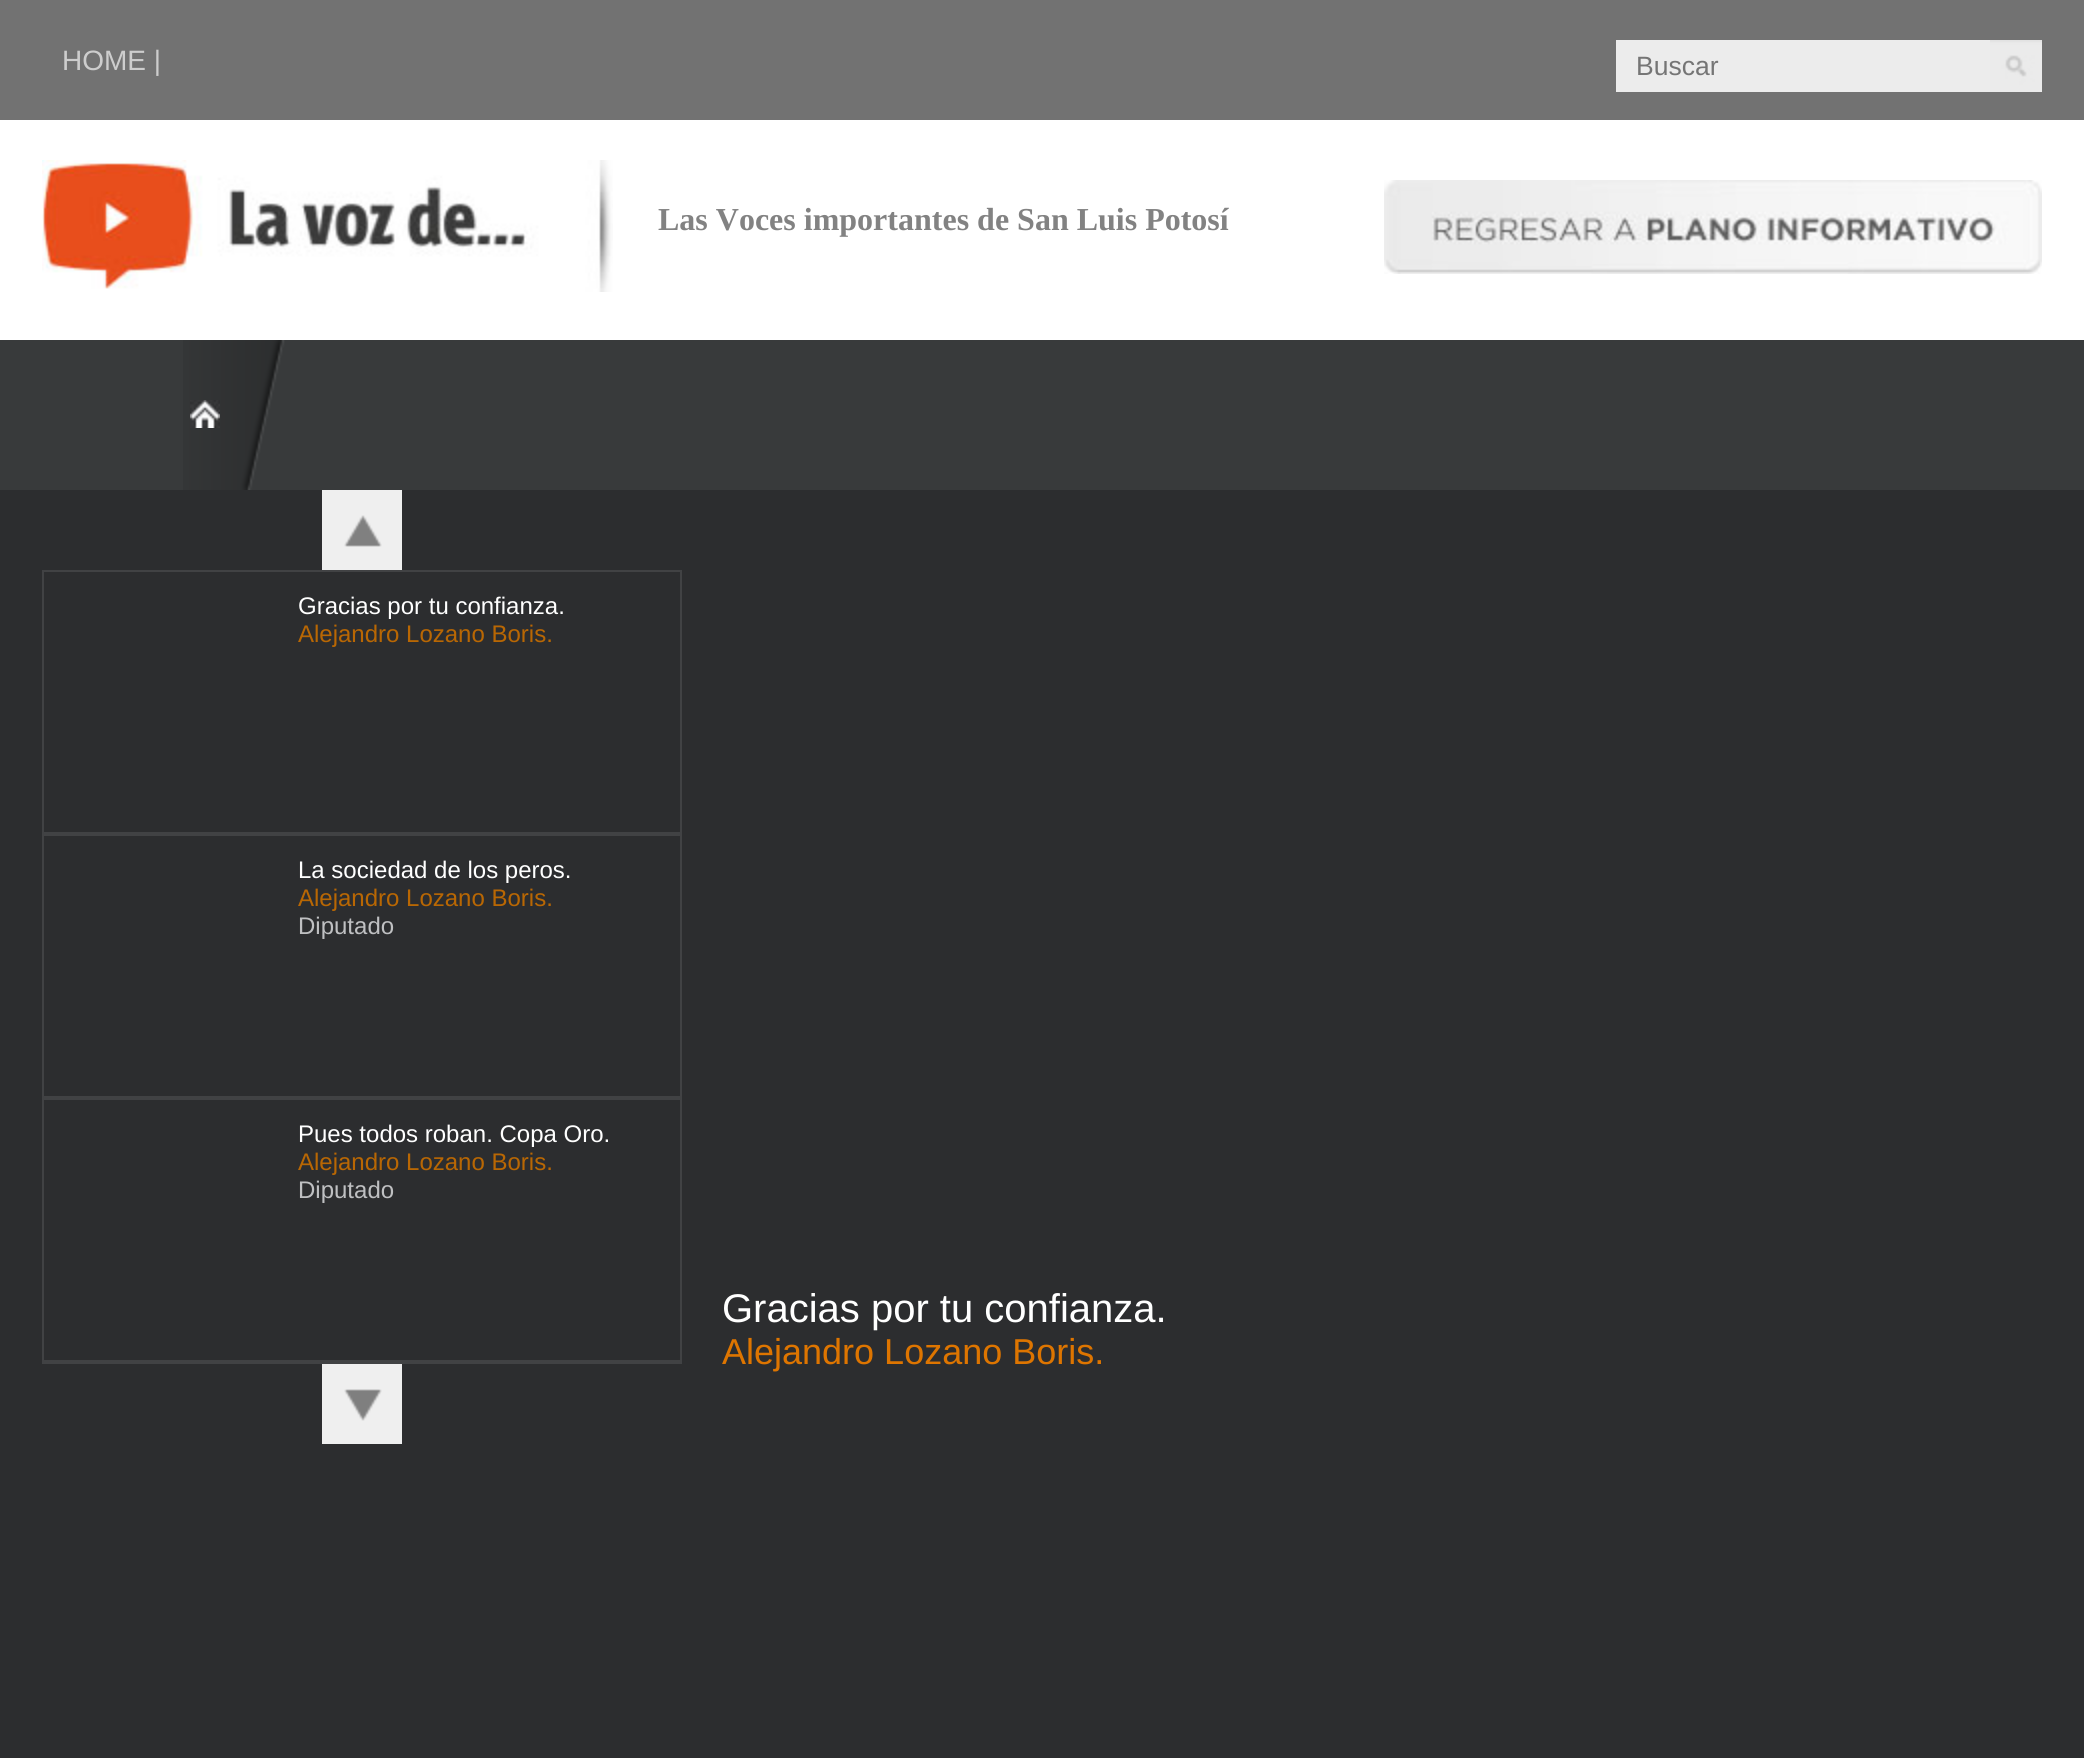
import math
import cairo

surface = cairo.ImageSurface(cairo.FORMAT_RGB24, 2084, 1758)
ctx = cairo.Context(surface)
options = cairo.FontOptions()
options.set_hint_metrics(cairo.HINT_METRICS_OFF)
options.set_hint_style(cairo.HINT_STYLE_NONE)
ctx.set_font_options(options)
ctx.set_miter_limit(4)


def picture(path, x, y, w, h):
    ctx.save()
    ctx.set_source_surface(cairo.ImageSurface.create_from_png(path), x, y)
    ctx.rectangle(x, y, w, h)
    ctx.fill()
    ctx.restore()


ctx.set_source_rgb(0.173, 0.176, 0.184)
ctx.paint()
ctx.set_source_rgb(0.447, 0.447, 0.447)
ctx.rectangle(0, 0, 2084, 120)
ctx.fill()
ctx.select_font_face("Liberation Sans")
ctx.set_font_size(28)
ctx.set_source_rgb(0.804, 0.804, 0.804)
ctx.move_to(62, 70)
ctx.show_text("HOME |")
ctx.set_source_rgb(0.922, 0.922, 0.922)
ctx.rectangle(1616, 40, 374, 52)
ctx.fill()
ctx.set_font_size(26.5)
ctx.set_source_rgb(0.459, 0.459, 0.459)
ctx.move_to(1636, 75)
ctx.show_text("Buscar")
picture("img1.png", 1990, 40, 52, 52)
ctx.set_source_rgb(1, 1, 1)
ctx.rectangle(0, 120, 2084, 220)
ctx.fill()
picture("img2.png", 42, 160, 571, 132)
ctx.select_font_face("Liberation Serif", cairo.FONT_SLANT_NORMAL, cairo.FONT_WEIGHT_BOLD)
ctx.set_font_size(32)
ctx.set_source_rgb(0.51, 0.51, 0.51)
ctx.move_to(658, 230)
ctx.show_text("Las Voces importantes de San Luis Potosí")
picture("img3.png", 1384, 180, 658, 94)
ctx.set_source_rgb(0.22, 0.227, 0.231)
ctx.rectangle(0, 340, 2084, 150)
ctx.fill()
picture("img4.png", 183, 340, 102, 150)
picture("img5.png", 190, 400, 30, 28)
ctx.set_source_rgb(0.937, 0.937, 0.937)
ctx.rectangle(322, 490, 80, 80)
ctx.fill()
picture("img6.png", 344, 515, 38, 32)
ctx.rectangle(43, 571, 638, 262)
ctx.set_source_rgb(0.255, 0.259, 0.267)
ctx.stroke()
ctx.select_font_face("Liberation Sans")
ctx.set_font_size(24)
ctx.set_source_rgb(1, 1, 1)
ctx.move_to(298, 614)
ctx.show_text("Gracias por tu confianza.")
ctx.set_source_rgb(0.725, 0.404, 0.012)
ctx.move_to(298, 642)
ctx.show_text("Alejandro Lozano Boris.")
ctx.rectangle(43, 835, 638, 262)
ctx.set_source_rgb(0.255, 0.259, 0.267)
ctx.stroke()
ctx.set_source_rgb(1, 1, 1)
ctx.move_to(298, 878)
ctx.show_text("La sociedad de los peros.")
ctx.set_source_rgb(0.725, 0.404, 0.012)
ctx.move_to(298, 906)
ctx.show_text("Alejandro Lozano Boris.")
ctx.set_source_rgb(0.749, 0.753, 0.761)
ctx.move_to(298, 934)
ctx.show_text("Diputado")
ctx.rectangle(43, 1099, 638, 262)
ctx.set_source_rgb(0.255, 0.259, 0.267)
ctx.stroke()
ctx.set_source_rgb(1, 1, 1)
ctx.move_to(298, 1142)
ctx.show_text("Pues todos roban. Copa Oro.")
ctx.set_source_rgb(0.725, 0.404, 0.012)
ctx.move_to(298, 1170)
ctx.show_text("Alejandro Lozano Boris.")
ctx.set_source_rgb(0.749, 0.753, 0.761)
ctx.move_to(298, 1198)
ctx.show_text("Diputado")
ctx.set_source_rgb(0.937, 0.937, 0.937)
ctx.rectangle(322, 1364, 80, 80)
ctx.fill()
picture("img7.png", 344, 1389, 38, 32)
ctx.save()
ctx.rectangle(42, 570, 640, 794)
ctx.clip()
ctx.rectangle(43, 1363, 638, 262)
ctx.set_source_rgb(0.255, 0.259, 0.267)
ctx.stroke()
ctx.restore()
ctx.set_font_size(40)
ctx.set_source_rgb(1, 1, 1)
ctx.move_to(722, 1322)
ctx.show_text("Gracias por tu confianza.")
ctx.set_font_size(36)
ctx.set_source_rgb(0.871, 0.459, 0)
ctx.move_to(722, 1364)
ctx.show_text("Alejandro Lozano Boris.")
surface.write_to_png("page.png")
